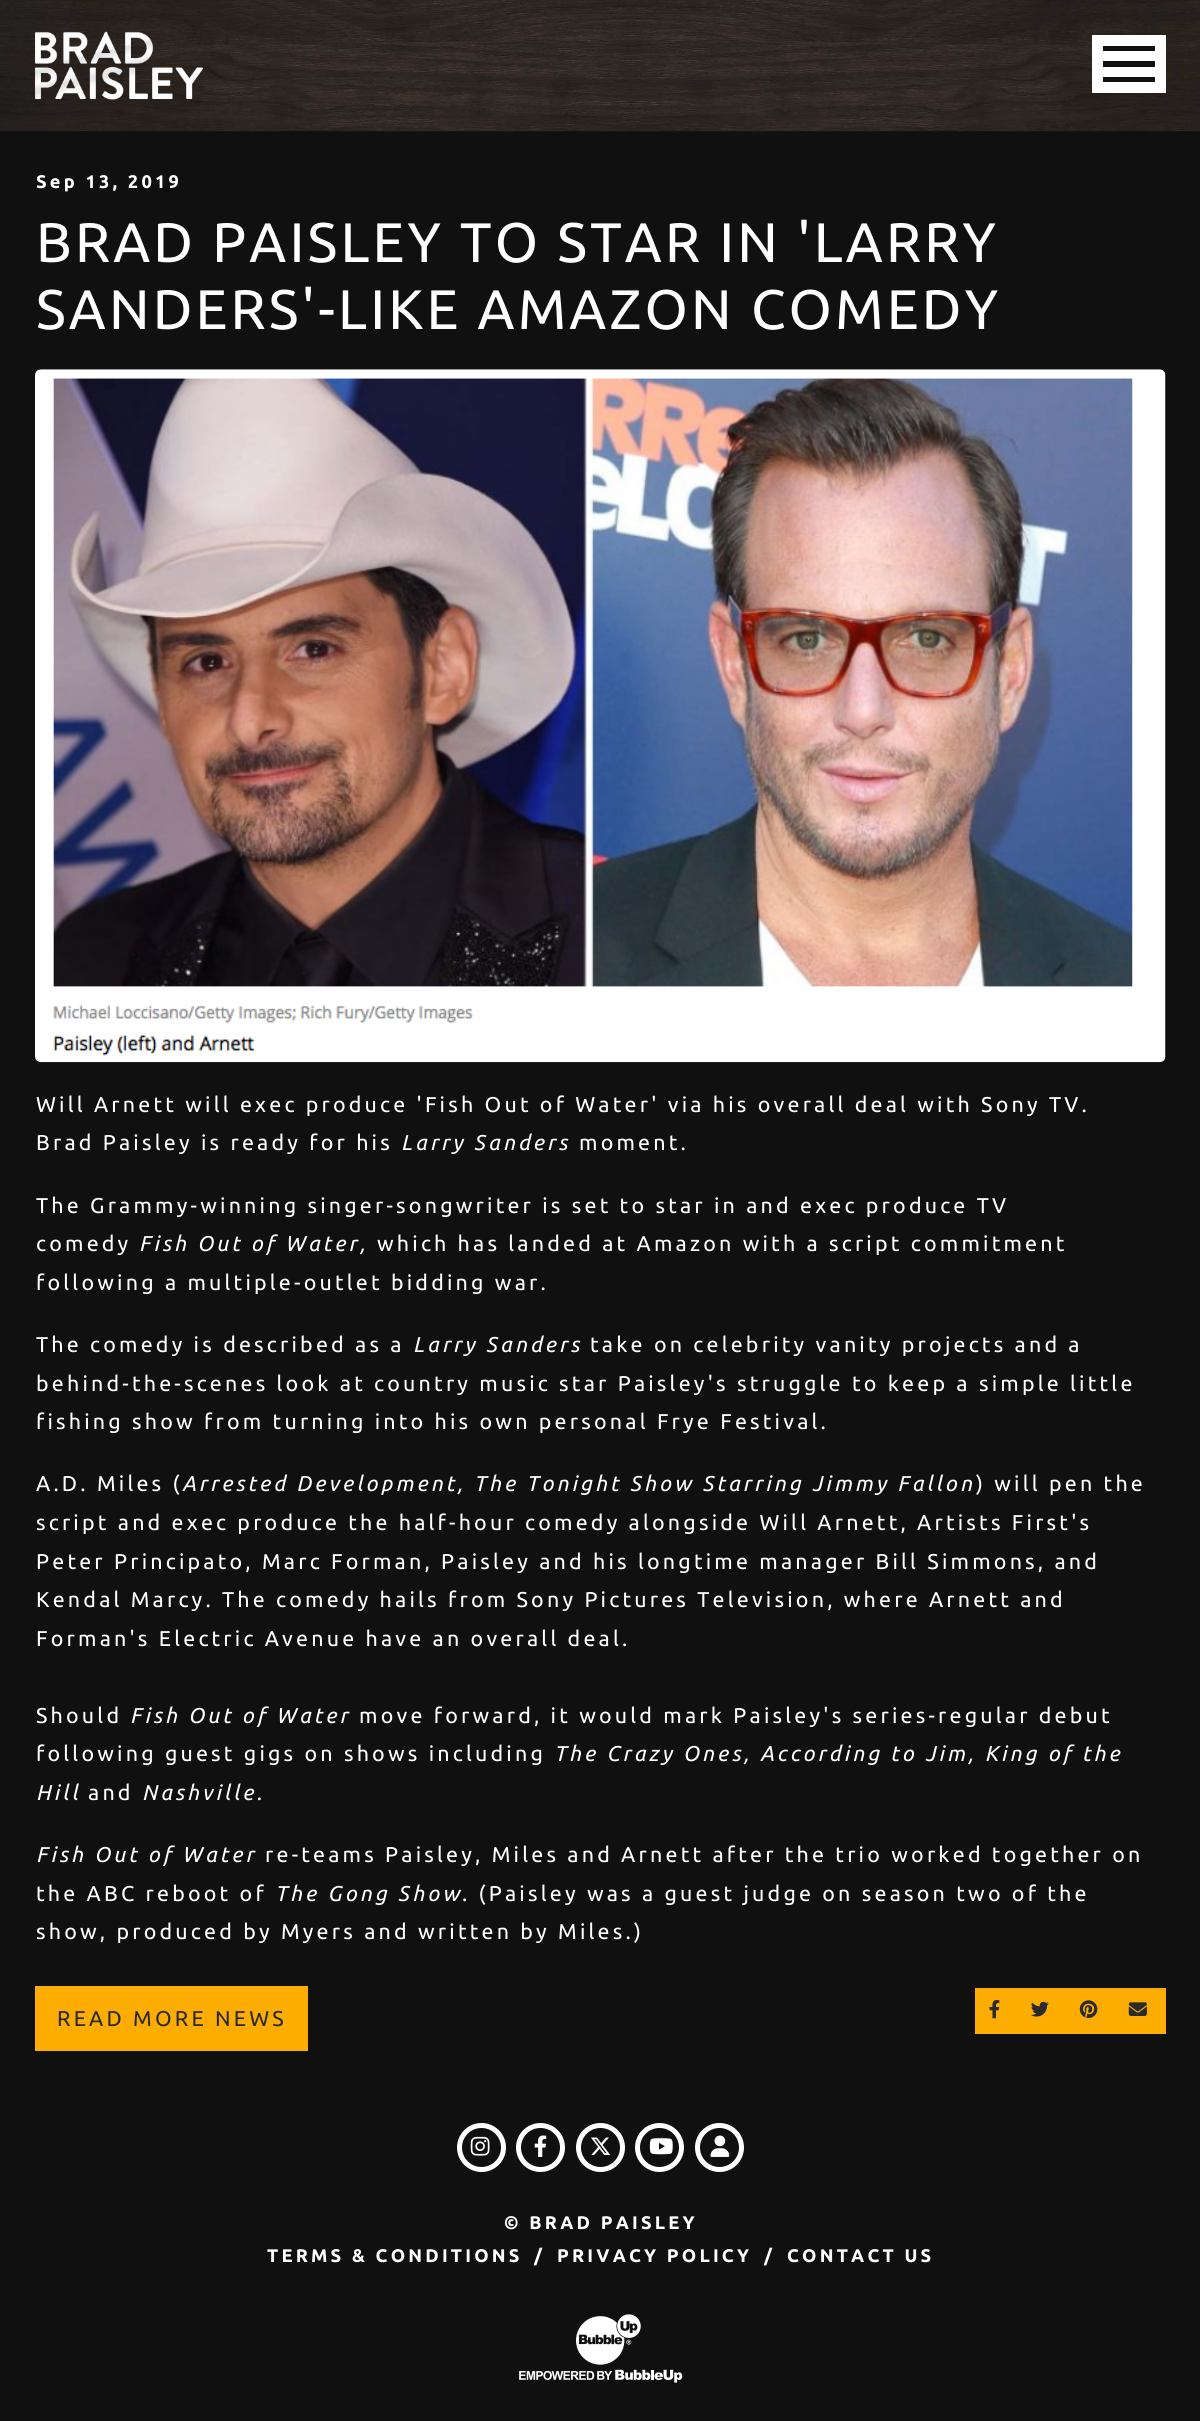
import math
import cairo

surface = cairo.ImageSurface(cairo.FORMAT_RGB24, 1200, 2421)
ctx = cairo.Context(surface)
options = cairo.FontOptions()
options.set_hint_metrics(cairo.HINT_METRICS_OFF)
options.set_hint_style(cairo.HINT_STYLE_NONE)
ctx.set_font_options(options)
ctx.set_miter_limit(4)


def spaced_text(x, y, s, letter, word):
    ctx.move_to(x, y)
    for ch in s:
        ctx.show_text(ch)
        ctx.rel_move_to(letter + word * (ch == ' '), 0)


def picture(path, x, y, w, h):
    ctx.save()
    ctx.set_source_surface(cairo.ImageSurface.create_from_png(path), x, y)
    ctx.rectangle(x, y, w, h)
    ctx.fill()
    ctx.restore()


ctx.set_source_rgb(0.063, 0.063, 0.063)
ctx.paint()
picture("img1.png", 0, 0, 1200, 132)
picture("img2.png", 35, 31, 168, 69)
ctx.set_source_rgb(1, 1, 1)
ctx.rectangle(1092, 35, 74, 58)
ctx.fill()
ctx.set_source_rgb(0.063, 0.063, 0.063)
ctx.rectangle(1103, 46, 52, 5)
ctx.fill()
ctx.rectangle(1103, 61, 52, 6)
ctx.fill()
ctx.rectangle(1103, 77, 52, 5)
ctx.fill()
ctx.select_font_face("Ubuntu", cairo.FONT_SLANT_NORMAL, cairo.FONT_WEIGHT_BOLD)
ctx.set_font_size(18.25)
ctx.set_source_rgb(1, 1, 1)
spaced_text(36, 188, "Sep 13, 2019", 3.2, 0)
ctx.select_font_face("Ubuntu")
ctx.set_font_size(55.7)
spaced_text(36, 262, "BRAD PAISLEY TO STAR IN 'LARRY", 3.2, 0)
spaced_text(36, 329, "SANDERS'-LIKE AMAZON COMEDY", 3.2, 0)
picture("img3.png", 35, 369, 1131, 694)
ctx.set_font_size(21.42)
spaced_text(36, 1112, "Will Arnett will exec produce 'Fish Out of Water' via his overall deal with Sony TV.", 3.2, 0)
spaced_text(36, 1150, "Brad Paisley is ready for his", 3.2, 0)
ctx.select_font_face("Ubuntu", cairo.FONT_SLANT_ITALIC)
spaced_text(401, 1150, "Larry Sanders", 3.2, 0)
ctx.select_font_face("Ubuntu")
spaced_text(579, 1150, "moment.", 3.2, 0)
spaced_text(36, 1213, "The Grammy-winning singer-songwriter is set to star in and exec produce TV", 3.2, 0)
spaced_text(36, 1251, "comedy", 3.2, 0)
ctx.select_font_face("Ubuntu", cairo.FONT_SLANT_ITALIC)
spaced_text(139, 1251, "Fish Out of Water,", 3.2, 0)
ctx.select_font_face("Ubuntu")
spaced_text(377, 1251, "which has landed at Amazon with a script commitment", 3.2, 0)
spaced_text(36, 1290, "following a multiple-outlet bidding war.", 3.2, 0)
spaced_text(36, 1352, "The comedy is described as a", 3.2, 0)
ctx.select_font_face("Ubuntu", cairo.FONT_SLANT_ITALIC)
spaced_text(413, 1352, "Larry Sanders", 3.2, 0)
ctx.select_font_face("Ubuntu")
spaced_text(590, 1352, "take on celebrity vanity projects and a", 3.2, 0)
spaced_text(36, 1391, "behind-the-scenes look at country music star Paisley's struggle to keep a simple little", 3.2, 0)
spaced_text(36, 1429, "fishing show from turning into his own personal Frye Festival.", 3.2, 0)
spaced_text(36, 1491, "A.D. Miles (", 3.2, 0)
ctx.select_font_face("Ubuntu", cairo.FONT_SLANT_ITALIC)
spaced_text(182, 1491, "Arrested Development, The Tonight Show Starring Jimmy Fallon", 3.2, 0)
ctx.select_font_face("Ubuntu")
spaced_text(976, 1491, ") will pen the", 3.2, 0)
spaced_text(36, 1530, "script and exec produce the half-hour comedy alongside Will Arnett, Artists First's", 3.2, 0)
spaced_text(36, 1569, "Peter Principato, Marc Forman, Paisley and his longtime manager Bill Simmons, and", 3.2, 0)
spaced_text(36, 1607, "Kendal Marcy. The comedy hails from Sony Pictures Television, where Arnett and", 3.2, 0)
spaced_text(36, 1646, "Forman's Electric Avenue have an overall deal.", 3.2, 0)
spaced_text(36, 1723, "Should", 3.2, 0)
ctx.select_font_face("Ubuntu", cairo.FONT_SLANT_ITALIC)
spaced_text(130, 1723, "Fish Out of Water", 3.2, 0)
ctx.select_font_face("Ubuntu")
spaced_text(359, 1723, "move forward, it would mark Paisley's series-regular debut", 3.2, 0)
spaced_text(36, 1761, "following guest gigs on shows including", 3.2, 0)
ctx.select_font_face("Ubuntu", cairo.FONT_SLANT_ITALIC)
spaced_text(554, 1761, "The Crazy Ones, According to Jim, King of the", 3.2, 0)
spaced_text(36, 1800, "Hill", 3.2, 0)
ctx.select_font_face("Ubuntu")
spaced_text(88, 1800, "and", 3.2, 0)
ctx.select_font_face("Ubuntu", cairo.FONT_SLANT_ITALIC)
spaced_text(142, 1800, "Nashville.", 3.2, 0)
spaced_text(36, 1862, "Fish Out of Water", 3.2, 0)
ctx.select_font_face("Ubuntu")
spaced_text(265, 1862, "re-teams Paisley, Miles and Arnett after the trio worked together on", 3.2, 0)
spaced_text(36, 1901, "the ABC reboot of", 3.2, 0)
ctx.select_font_face("Ubuntu", cairo.FONT_SLANT_ITALIC)
spaced_text(275, 1901, "The Gong Show", 3.2, 0)
ctx.select_font_face("Ubuntu")
spaced_text(462, 1901, ". (Paisley was a guest judge on season two of the", 3.2, 0)
spaced_text(36, 1939, "show, produced by Myers and written by Miles.)", 3.2, 0)
ctx.set_source_rgb(0.992, 0.678, 0.004)
ctx.rectangle(35, 1986, 273, 65)
ctx.fill()
ctx.set_source_rgb(0.165, 0.165, 0.165)
spaced_text(57, 2026, "READ MORE NEWS", 3.2, 0)
ctx.set_source_rgb(0.992, 0.678, 0.004)
ctx.rectangle(975, 1988, 191, 46)
ctx.fill()
picture("img4.png", 989, 2000, 11, 19)
picture("img5.png", 1031, 2001, 18, 16)
picture("img6.png", 1079, 2000, 19, 18)
picture("img7.png", 1128, 2002, 19, 14)
ctx.arc(481.5, 2147.5, 22, 0, 2 * math.pi)
ctx.set_source_rgb(1, 1, 1)
ctx.set_line_width(5)
ctx.stroke()
picture("img8.png", 470, 2136, 20, 20)
ctx.arc(540.5, 2147.5, 22, 0, 2 * math.pi)
ctx.stroke()
picture("img9.png", 534, 2135, 13, 22)
ctx.arc(600.5, 2147.5, 22, 0, 2 * math.pi)
ctx.stroke()
picture("img10.png", 591, 2137, 19, 18)
ctx.arc(659.5, 2147.5, 22, 0, 2 * math.pi)
ctx.stroke()
picture("img11.png", 649, 2138, 24, 17)
ctx.arc(719.5, 2147.5, 22, 0, 2 * math.pi)
ctx.stroke()
picture("img12.png", 710, 2135, 20, 22)
ctx.select_font_face("Ubuntu", cairo.FONT_SLANT_NORMAL, cairo.FONT_WEIGHT_BOLD)
ctx.set_font_size(18.25)
spaced_text(504, 2229, "© BRAD PAISLEY", 3.2, 0)
spaced_text(267, 2262, "TERMS & CONDITIONS", 3.2, 0)
spaced_text(534, 2262, "/", 3.2, 0)
spaced_text(557, 2262, "PRIVACY POLICY", 3.2, 0)
spaced_text(764, 2262, "/", 3.2, 0)
spaced_text(787, 2262, "CONTACT US", 3.2, 0)
picture("img13.png", 519, 2314, 164, 69)
surface.write_to_png("page.png")
